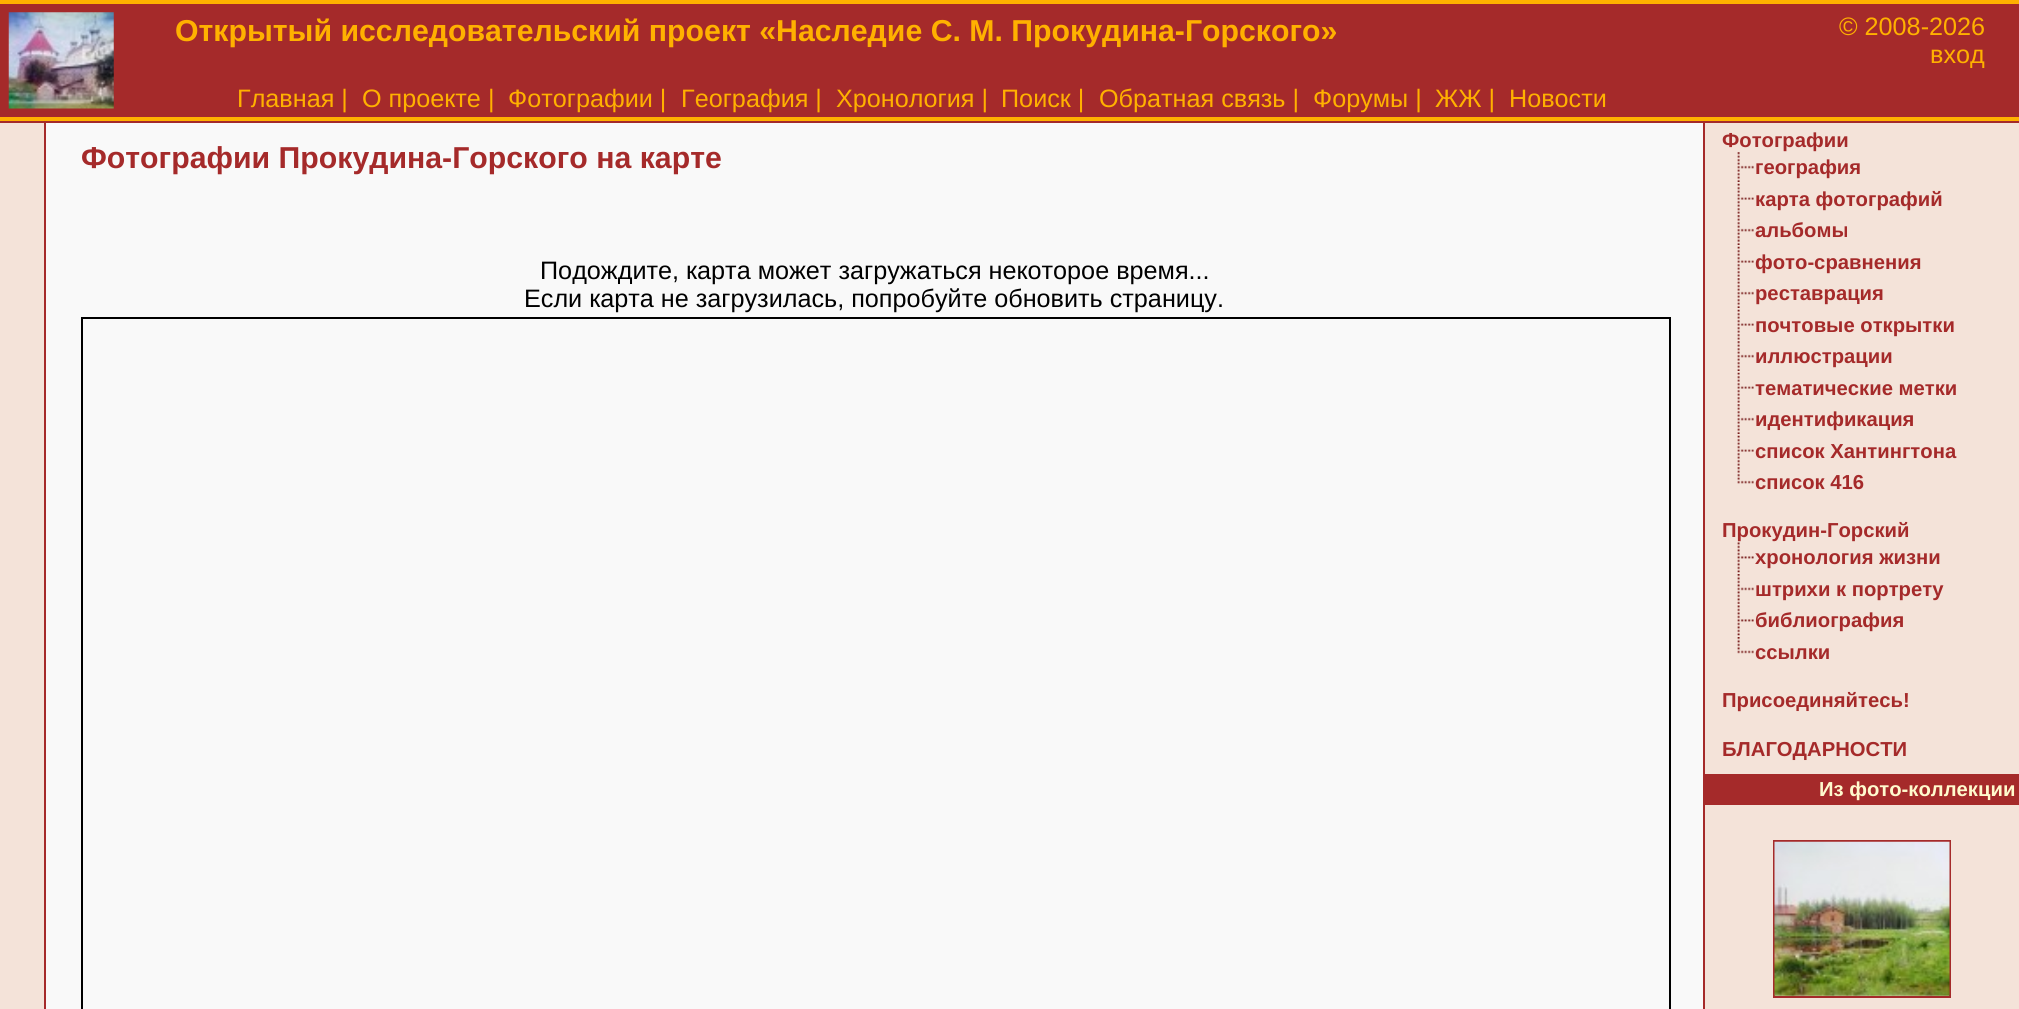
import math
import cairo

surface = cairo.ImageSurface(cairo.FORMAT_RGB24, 2019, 1009)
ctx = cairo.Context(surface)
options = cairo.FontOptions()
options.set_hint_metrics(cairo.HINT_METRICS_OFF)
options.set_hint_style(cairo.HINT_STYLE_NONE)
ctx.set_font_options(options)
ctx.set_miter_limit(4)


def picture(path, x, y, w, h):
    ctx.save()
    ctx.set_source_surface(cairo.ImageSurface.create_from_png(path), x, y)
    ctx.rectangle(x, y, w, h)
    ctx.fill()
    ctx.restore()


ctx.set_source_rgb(0.647, 0.165, 0.165)
ctx.paint()
ctx.set_source_rgb(1, 0.694, 0)
ctx.rectangle(0, 0, 2019, 4)
ctx.fill()
ctx.rectangle(0, 117, 175, 4)
ctx.fill()
picture("img1.png", 8, 12, 106, 97)
ctx.select_font_face("Liberation Sans", cairo.FONT_SLANT_NORMAL, cairo.FONT_WEIGHT_BOLD)
ctx.set_font_size(30.25)
ctx.move_to(175, 41)
ctx.show_text("Открытый исследовательский проект «Наследие С. М. Прокудина-Горского»")
ctx.rectangle(175, 117, 1844, 4)
ctx.fill()
ctx.select_font_face("Liberation Sans")
ctx.set_font_size(25.2)
ctx.move_to(1839, 35)
ctx.show_text("© 2008-2026")
ctx.move_to(1930, 63)
ctx.show_text("вход")
ctx.move_to(237, 107)
ctx.show_text("Главная |")
ctx.move_to(362, 107)
ctx.show_text("О проекте |")
ctx.move_to(508, 107)
ctx.show_text("Фотографии |")
ctx.move_to(681, 107)
ctx.show_text("География |")
ctx.move_to(836, 107)
ctx.show_text("Хронология |")
ctx.move_to(1001, 107)
ctx.show_text("Поиск |")
ctx.move_to(1099, 107)
ctx.show_text("Обратная связь |")
ctx.move_to(1313, 107)
ctx.show_text("Форумы |")
ctx.move_to(1435, 107)
ctx.show_text("ЖЖ |")
ctx.move_to(1509, 107)
ctx.show_text("Новости")
ctx.set_source_rgb(0.957, 0.89, 0.851)
ctx.rectangle(0, 123, 44, 886)
ctx.fill()
ctx.set_source_rgb(0.976, 0.976, 0.976)
ctx.rectangle(46, 123, 1657, 886)
ctx.fill()
ctx.select_font_face("Liberation Sans", cairo.FONT_SLANT_NORMAL, cairo.FONT_WEIGHT_BOLD)
ctx.set_font_size(30.25)
ctx.set_source_rgb(0.647, 0.165, 0.165)
ctx.move_to(81, 168)
ctx.show_text("Фотографии Прокудина-Горского на карте")
ctx.select_font_face("Liberation Sans")
ctx.set_font_size(25.2)
ctx.set_source_rgb(0, 0, 0)
ctx.move_to(540, 279)
ctx.show_text("Подождите, карта может загружаться некоторое время...")
ctx.move_to(524, 307)
ctx.show_text("Если карта не загрузилась, попробуйте обновить страницу.")
ctx.rectangle(82, 318, 1588, 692)
ctx.stroke()
ctx.set_source_rgb(0.957, 0.89, 0.851)
ctx.rectangle(1705, 123, 314, 886)
ctx.fill()
ctx.select_font_face("Liberation Sans", cairo.FONT_SLANT_NORMAL, cairo.FONT_WEIGHT_BOLD)
ctx.set_font_size(20.25)
ctx.set_source_rgb(0.647, 0.165, 0.165)
ctx.move_to(1722, 147)
ctx.show_text("Фотографии")
picture("img2.png", 1737, 152, 17, 30)
ctx.move_to(1755, 174)
ctx.show_text("география")
picture("img3.png", 1737, 183, 17, 31)
ctx.move_to(1755, 206)
ctx.show_text("карта фотографий")
picture("img4.png", 1737, 215, 17, 30)
ctx.move_to(1755, 237)
ctx.show_text("альбомы")
picture("img3.png", 1737, 246, 17, 31)
ctx.move_to(1755, 269)
ctx.show_text("фото-сравнения")
picture("img2.png", 1737, 278, 17, 30)
ctx.move_to(1755, 300)
ctx.show_text("реставрация")
picture("img3.png", 1737, 309, 17, 31)
ctx.move_to(1755, 332)
ctx.show_text("почтовые открытки")
picture("img2.png", 1737, 341, 17, 30)
ctx.move_to(1755, 363)
ctx.show_text("иллюстрации")
picture("img3.png", 1737, 372, 17, 31)
ctx.move_to(1755, 395)
ctx.show_text("тематические метки")
picture("img2.png", 1737, 404, 17, 30)
ctx.move_to(1755, 426)
ctx.show_text("идентификация")
picture("img3.png", 1737, 435, 17, 31)
ctx.move_to(1755, 458)
ctx.show_text("список Хантингтона")
picture("img5.png", 1737, 467, 17, 17)
ctx.move_to(1755, 489)
ctx.show_text("список 416")
ctx.move_to(1722, 537)
ctx.show_text("Прокудин-Горский")
picture("img6.png", 1737, 542, 17, 31)
ctx.move_to(1755, 564)
ctx.show_text("хронология жизни")
picture("img7.png", 1737, 574, 17, 30)
ctx.move_to(1755, 596)
ctx.show_text("штрихи к портрету")
picture("img6.png", 1737, 605, 17, 31)
ctx.move_to(1755, 627)
ctx.show_text("библиография")
picture("img8.png", 1737, 637, 17, 17)
ctx.move_to(1755, 659)
ctx.show_text("ссылки")
ctx.move_to(1722, 707)
ctx.show_text("Присоединяйтесь!")
ctx.move_to(1722, 756)
ctx.show_text("БЛАГОДАРНОСТИ")
ctx.rectangle(1705, 774, 314, 31)
ctx.fill()
ctx.set_source_rgb(1, 0.98, 0.804)
ctx.move_to(1819, 796)
ctx.show_text("Из фото-коллекции")
ctx.rectangle(1774, 841, 176, 156)
ctx.set_source_rgb(0.647, 0.165, 0.165)
ctx.stroke()
picture("img9.png", 1774, 841, 176, 155)
surface.write_to_png("page.png")
